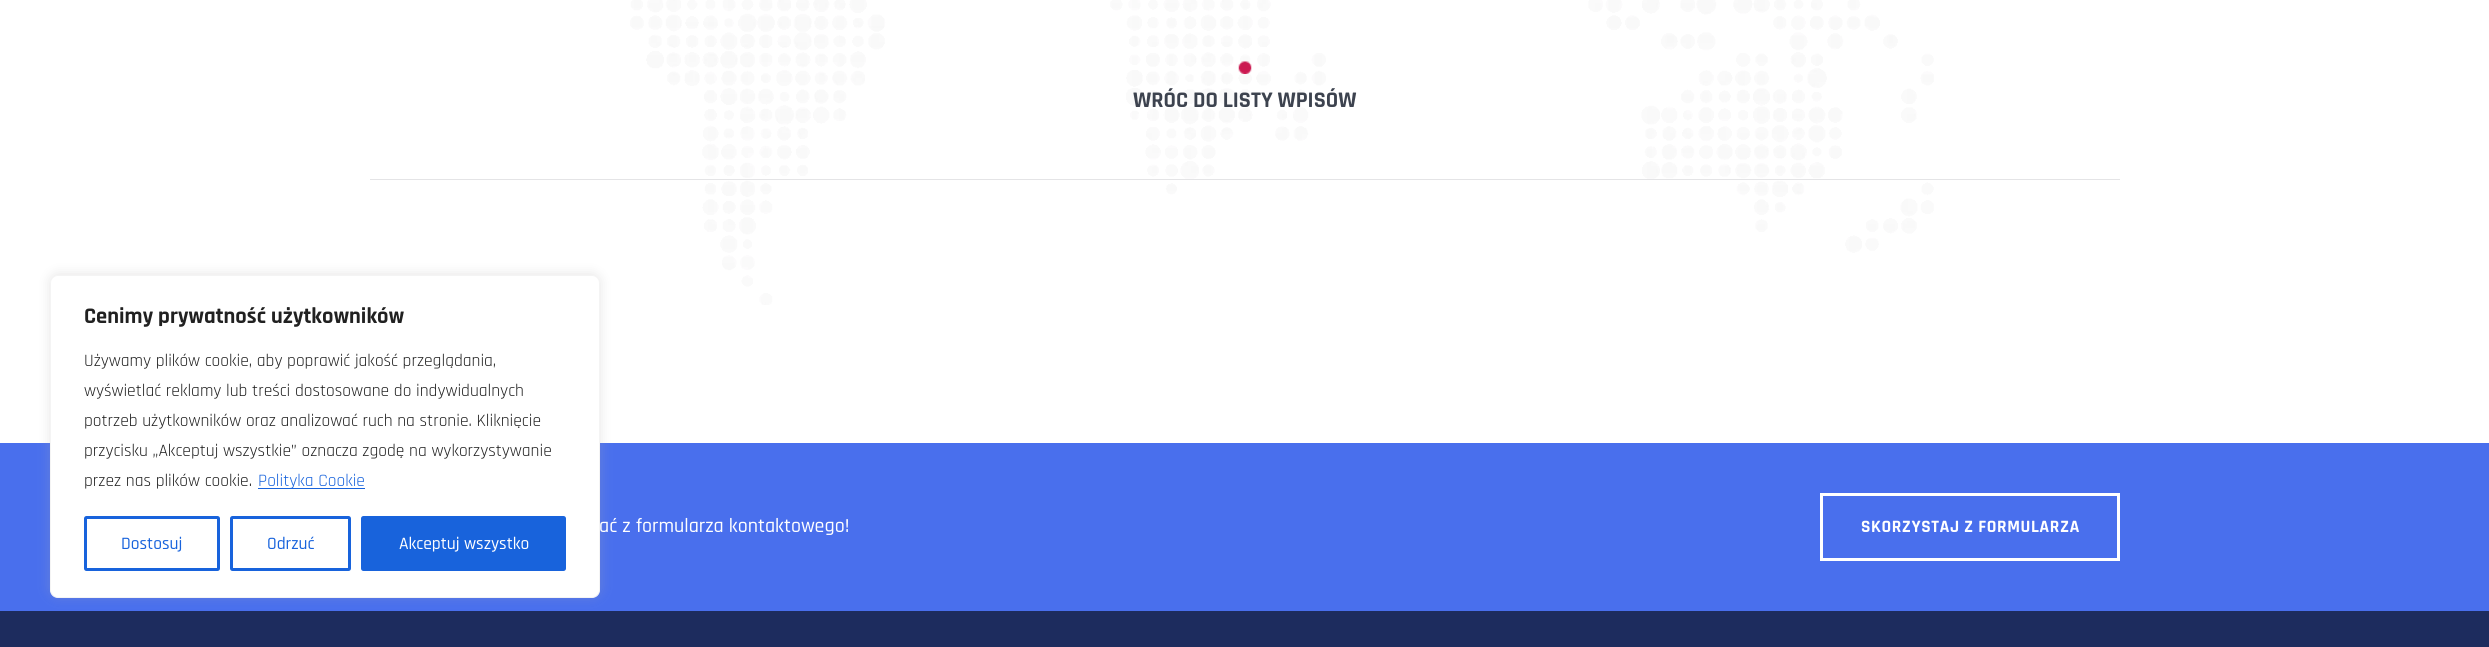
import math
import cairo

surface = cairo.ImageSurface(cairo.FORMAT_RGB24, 2489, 647)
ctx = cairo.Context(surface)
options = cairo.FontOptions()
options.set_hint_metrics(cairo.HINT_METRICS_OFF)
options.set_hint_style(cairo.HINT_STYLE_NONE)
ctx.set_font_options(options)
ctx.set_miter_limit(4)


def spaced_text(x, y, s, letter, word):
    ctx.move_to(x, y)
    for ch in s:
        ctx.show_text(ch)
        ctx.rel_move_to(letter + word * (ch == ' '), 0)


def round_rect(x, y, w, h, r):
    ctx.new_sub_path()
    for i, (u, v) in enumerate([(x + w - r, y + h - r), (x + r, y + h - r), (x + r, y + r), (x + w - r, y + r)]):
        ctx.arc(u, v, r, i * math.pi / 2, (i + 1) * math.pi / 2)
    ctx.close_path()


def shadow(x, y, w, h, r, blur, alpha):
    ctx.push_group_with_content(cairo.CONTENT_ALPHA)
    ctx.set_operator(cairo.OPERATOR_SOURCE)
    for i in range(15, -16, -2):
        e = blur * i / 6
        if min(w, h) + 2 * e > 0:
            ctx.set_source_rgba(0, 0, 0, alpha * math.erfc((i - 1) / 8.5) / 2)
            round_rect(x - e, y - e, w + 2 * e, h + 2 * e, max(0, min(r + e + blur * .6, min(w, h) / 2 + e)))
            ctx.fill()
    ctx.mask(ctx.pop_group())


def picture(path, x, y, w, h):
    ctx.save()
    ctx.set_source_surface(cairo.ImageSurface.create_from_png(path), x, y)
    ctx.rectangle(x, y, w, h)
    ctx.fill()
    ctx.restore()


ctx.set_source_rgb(1, 1, 1)
ctx.paint()
picture("img1.png", 630, 0, 1304, 305)
ctx.set_source_rgb(0.894, 0.894, 0.902)
ctx.rectangle(370, 179, 1750, 1)
ctx.fill()
picture("img2.png", 1238, 61, 14, 13)
ctx.select_font_face("Rajdhani", cairo.FONT_SLANT_NORMAL, cairo.FONT_WEIGHT_BOLD)
ctx.set_font_size(22.5)
ctx.set_source_rgb(0.239, 0.263, 0.31)
ctx.move_to(1133, 107)
ctx.show_text("WRÓC DO LISTY WPISÓW")
ctx.set_source_rgb(0.286, 0.435, 0.929)
ctx.rectangle(0, 443, 2489, 168)
ctx.fill()
ctx.set_source_rgb(0.114, 0.173, 0.369)
ctx.rectangle(0, 611, 2489, 36)
ctx.fill()
ctx.set_source_rgb(0.675, 0.671, 0.671)
shadow(50, 274, 550, 322, 8, 6, 0.3)
ctx.set_source_rgb(1, 1, 1)
round_rect(50.5, 275.5, 549, 322, 7.5)
ctx.fill_preserve()
ctx.set_source_rgb(0.957, 0.957, 0.957)
ctx.set_line_width(1)
ctx.stroke()
ctx.set_source_rgb(0.129, 0.129, 0.129)
ctx.move_to(84, 323)
ctx.show_text("Cenimy prywatność użytkowników")
ctx.select_font_face("Rajdhani")
ctx.set_font_size(17.5)
ctx.move_to(84, 366)
ctx.show_text("Używamy plików cookie, aby poprawić jakość przeglądania,")
ctx.move_to(84, 396)
ctx.show_text("wyświetlać reklamy lub treści dostosowane do indywidualnych")
ctx.move_to(84, 426)
ctx.show_text("potrzeb użytkowników oraz analizować ruch na stronie. Kliknięcie")
ctx.move_to(84, 456)
ctx.show_text("przycisku „Akceptuj wszystkie” oznacza zgodę na wykorzystywanie")
ctx.move_to(84, 486)
ctx.show_text("przez nas plików cookie.")
ctx.set_source_rgb(0.094, 0.388, 0.863)
ctx.rectangle(258, 488, 107, 1)
ctx.fill()
ctx.move_to(258, 486)
ctx.show_text("Polityka Cookie")
round_rect(85.5, 517.5, 133, 52, 1)
ctx.set_line_width(3)
ctx.stroke()
ctx.select_font_face("Rajdhani Medium")
ctx.move_to(121, 549)
ctx.show_text("Dostosuj")
round_rect(231.5, 517.5, 118, 52, 1)
ctx.stroke()
ctx.move_to(267, 549)
ctx.show_text("Odrzuć")
round_rect(362.5, 517.5, 202, 52, 1)
ctx.fill_preserve()
ctx.stroke()
ctx.set_source_rgb(1, 1, 1)
ctx.move_to(399, 549)
ctx.show_text("Akceptuj wszystko")
ctx.set_font_size(20)
ctx.move_to(599, 532)
ctx.show_text("ać z formularza kontaktowego!")
ctx.rectangle(1821.5, 494.5, 297, 65)
ctx.stroke()
ctx.select_font_face("Rajdhani", cairo.FONT_SLANT_NORMAL, cairo.FONT_WEIGHT_BOLD)
ctx.set_font_size(17.5)
spaced_text(1861, 532, "SKORZYSTAJ Z FORMULARZA", 0.6, 0)
surface.write_to_png("page.png")
